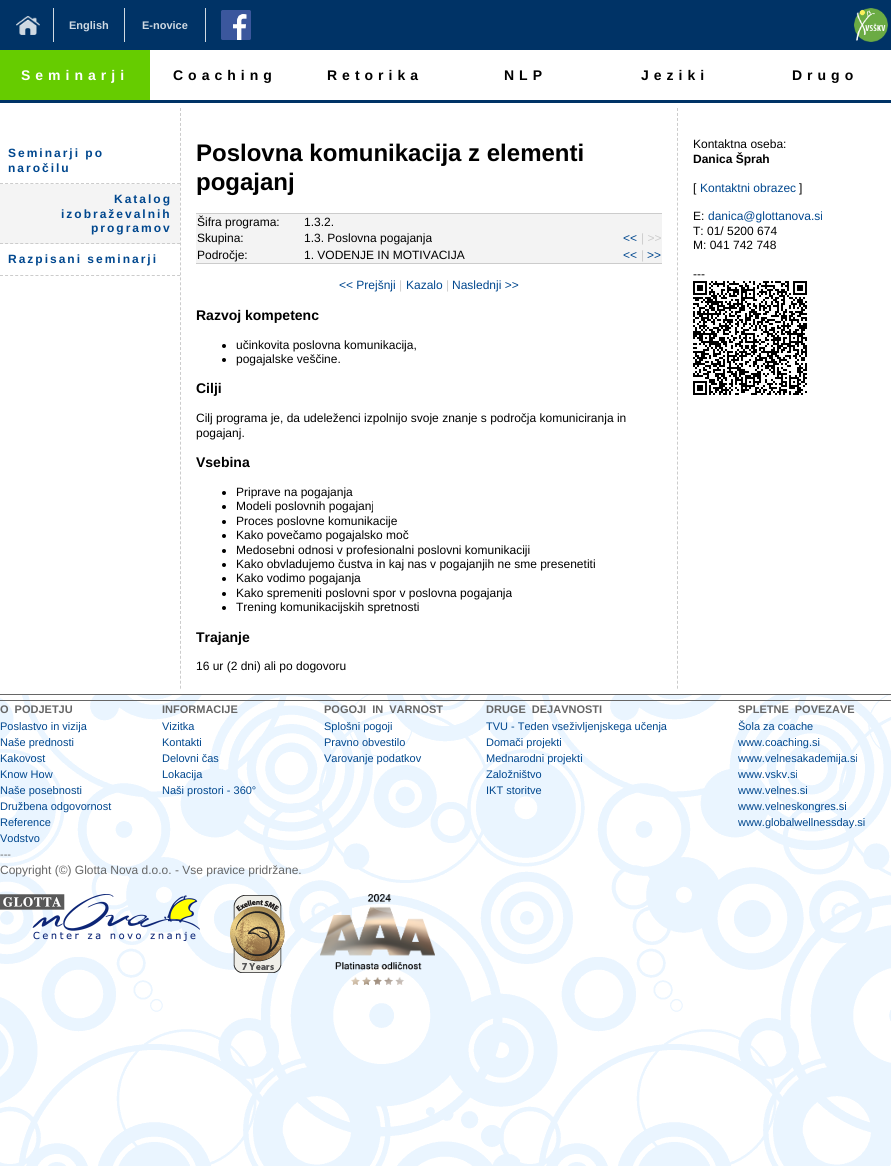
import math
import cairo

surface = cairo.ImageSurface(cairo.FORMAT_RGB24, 891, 1166)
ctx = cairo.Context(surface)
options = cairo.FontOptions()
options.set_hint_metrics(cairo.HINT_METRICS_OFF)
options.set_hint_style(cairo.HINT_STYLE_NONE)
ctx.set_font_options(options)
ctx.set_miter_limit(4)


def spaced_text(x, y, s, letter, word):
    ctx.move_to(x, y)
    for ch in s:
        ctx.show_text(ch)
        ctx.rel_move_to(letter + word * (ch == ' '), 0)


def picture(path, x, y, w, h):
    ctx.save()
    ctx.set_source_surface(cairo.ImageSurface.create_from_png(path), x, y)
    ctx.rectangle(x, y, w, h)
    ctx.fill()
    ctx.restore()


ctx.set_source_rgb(1, 1, 1)
ctx.paint()
picture("img1.png", 0, 695, 891, 471)
ctx.set_source_rgb(0, 0.2, 0.4)
ctx.rectangle(0, 0, 891, 50)
ctx.fill()
picture("img2.png", 16, 16, 24, 19)
ctx.set_source_rgb(0.812, 0.851, 0.886)
ctx.rectangle(53, 8, 1, 34)
ctx.fill()
ctx.select_font_face("Liberation Sans", cairo.FONT_SLANT_NORMAL, cairo.FONT_WEIGHT_BOLD)
ctx.set_font_size(11)
ctx.move_to(69, 29)
ctx.show_text("English")
ctx.rectangle(124, 8, 1, 34)
ctx.fill()
ctx.move_to(142, 29)
ctx.show_text("E-novice")
ctx.rectangle(205, 8, 1, 34)
ctx.fill()
picture("img3.png", 221, 10, 30, 30)
picture("img4.png", 854, 8, 34, 34)
ctx.set_source_rgb(0.4, 0.8, 0)
ctx.rectangle(0, 50, 150, 50)
ctx.fill()
ctx.set_source_rgb(0, 0.2, 0.4)
ctx.rectangle(0, 100, 891, 3)
ctx.fill()
ctx.set_font_size(14)
ctx.set_source_rgb(1, 1, 1)
spaced_text(21, 80, "Seminarji", 5, 0)
ctx.set_source_rgb(0, 0, 0)
spaced_text(173, 80, "Coaching", 5, 0)
spaced_text(327, 80, "Retorika", 5, 0)
spaced_text(504, 80, "NLP", 5, 0)
spaced_text(641, 80, "Jeziki", 5, 0)
spaced_text(792, 80, "Drugo", 5, 0)
ctx.new_path()
ctx.move_to(0, 183.5)
ctx.line_to(180, 183.5)
ctx.set_source_rgb(0.8, 0.8, 0.8)
ctx.set_line_width(1)
ctx.set_dash([3, 2.06])
ctx.stroke()
ctx.set_font_size(12)
ctx.set_source_rgb(0, 0.278, 0.557)
spaced_text(8, 157, "Seminarji po", 2, 0)
spaced_text(8, 172, "naročilu", 2, 0)
ctx.set_source_rgb(0.957, 0.957, 0.957)
ctx.rectangle(0, 184, 180, 60)
ctx.fill()
ctx.new_path()
ctx.move_to(0, 243.5)
ctx.line_to(180, 243.5)
ctx.set_source_rgb(0.8, 0.8, 0.8)
ctx.stroke()
ctx.set_source_rgb(0, 0.278, 0.557)
spaced_text(114, 203, "Katalog", 2, 0)
spaced_text(61, 218, "izobraževalnih", 2, 0)
spaced_text(91, 232, "programov", 2, 0)
ctx.new_path()
ctx.move_to(0, 275.5)
ctx.line_to(180, 275.5)
ctx.set_source_rgb(0.8, 0.8, 0.8)
ctx.stroke()
ctx.set_source_rgb(0, 0.278, 0.557)
spaced_text(8, 263, "Razpisani seminarji", 2, 0)
ctx.new_path()
ctx.move_to(180.5, 108)
ctx.line_to(180.5, 689)
ctx.set_source_rgb(0.8, 0.8, 0.8)
ctx.set_dash([3, 1.98])
ctx.stroke()
ctx.set_font_size(24)
ctx.set_source_rgb(0, 0, 0)
ctx.move_to(196, 161)
ctx.show_text("Poslovna komunikacija z elementi")
ctx.move_to(196, 190)
ctx.show_text("pogajanj")
ctx.set_source_rgb(0.953, 0.953, 0.953)
ctx.rectangle(196, 214, 466, 16)
ctx.fill()
ctx.set_source_rgb(0.8, 0.8, 0.8)
ctx.rectangle(196, 213, 466, 1)
ctx.fill()
ctx.select_font_face("Liberation Sans")
ctx.set_font_size(12)
ctx.set_source_rgb(0, 0, 0)
ctx.move_to(197, 226)
ctx.show_text("Šifra programa:")
ctx.move_to(304, 226)
ctx.show_text("1.3.2.")
ctx.set_source_rgb(0.953, 0.953, 0.953)
ctx.rectangle(196, 230, 466, 17)
ctx.fill()
ctx.set_source_rgb(0, 0, 0)
ctx.move_to(197, 242)
ctx.show_text("Skupina:")
ctx.move_to(304, 242)
ctx.show_text("1.3. Poslovna pogajanja")
ctx.set_source_rgb(0, 0.278, 0.557)
ctx.move_to(623, 242)
ctx.show_text("<<")
ctx.set_source_rgb(0.8, 0.8, 0.8)
ctx.move_to(641, 242)
ctx.show_text("| >>")
ctx.set_source_rgb(0.953, 0.953, 0.953)
ctx.rectangle(196, 247, 466, 16)
ctx.fill()
ctx.set_source_rgb(0.8, 0.8, 0.8)
ctx.rectangle(196, 263, 466, 1)
ctx.fill()
ctx.set_source_rgb(0, 0, 0)
ctx.move_to(197, 259)
ctx.show_text("Področje:")
ctx.move_to(304, 259)
ctx.show_text("1. VODENJE IN MOTIVACIJA")
ctx.set_source_rgb(0, 0.278, 0.557)
ctx.move_to(623, 259)
ctx.show_text("<<")
ctx.set_source_rgb(0.8, 0.8, 0.8)
ctx.move_to(641, 259)
ctx.show_text("|")
ctx.set_source_rgb(0, 0.278, 0.557)
ctx.move_to(647, 259)
ctx.show_text(">>")
ctx.move_to(339, 289)
ctx.show_text("<< Prejšnji")
ctx.set_source_rgb(0.8, 0.8, 0.8)
ctx.move_to(399, 289)
ctx.show_text("|")
ctx.set_source_rgb(0, 0.278, 0.557)
ctx.move_to(406, 289)
ctx.show_text("Kazalo")
ctx.set_source_rgb(0.8, 0.8, 0.8)
ctx.move_to(446, 289)
ctx.show_text("|")
ctx.set_source_rgb(0, 0.278, 0.557)
ctx.move_to(452, 289)
ctx.show_text("Naslednji >>")
ctx.select_font_face("Liberation Sans", cairo.FONT_SLANT_NORMAL, cairo.FONT_WEIGHT_BOLD)
ctx.set_font_size(14)
ctx.set_source_rgb(0, 0, 0)
ctx.move_to(196, 320)
ctx.show_text("Razvoj kompetenc")
ctx.new_path()
ctx.arc(224, 346, 2, 0, 2 * math.pi)
ctx.fill()
ctx.select_font_face("Liberation Sans")
ctx.set_font_size(12)
ctx.move_to(236, 349)
ctx.show_text("učinkovita poslovna komunikacija,")
ctx.new_path()
ctx.arc(224, 360, 2, 0, 2 * math.pi)
ctx.fill()
ctx.move_to(236, 363)
ctx.show_text("pogajalske veščine.")
ctx.select_font_face("Liberation Sans", cairo.FONT_SLANT_NORMAL, cairo.FONT_WEIGHT_BOLD)
ctx.set_font_size(14)
ctx.move_to(196, 393)
ctx.show_text("Cilji")
ctx.select_font_face("Liberation Sans")
ctx.set_font_size(12)
ctx.move_to(196, 422)
ctx.show_text("Cilj programa je, da udeleženci izpolnijo svoje znanje s področja komuniciranja in")
ctx.move_to(196, 437)
ctx.show_text("pogajanj.")
ctx.select_font_face("Liberation Sans", cairo.FONT_SLANT_NORMAL, cairo.FONT_WEIGHT_BOLD)
ctx.set_font_size(14)
ctx.move_to(196, 467)
ctx.show_text("Vsebina")
ctx.new_path()
ctx.arc(224, 493, 2, 0, 2 * math.pi)
ctx.fill()
ctx.select_font_face("Liberation Sans")
ctx.set_font_size(12)
ctx.move_to(236, 496)
ctx.show_text("Priprave na pogajanja")
ctx.new_path()
ctx.arc(224, 507, 2, 0, 2 * math.pi)
ctx.fill()
ctx.move_to(236, 510)
ctx.show_text("Modeli poslovnih pogajanj")
ctx.new_path()
ctx.arc(224, 522, 2, 0, 2 * math.pi)
ctx.fill()
ctx.move_to(236, 525)
ctx.show_text("Proces poslovne komunikacije")
ctx.new_path()
ctx.arc(224, 536, 2, 0, 2 * math.pi)
ctx.fill()
ctx.move_to(236, 539)
ctx.show_text("Kako povečamo pogajalsko moč")
ctx.new_path()
ctx.arc(224, 551, 2, 0, 2 * math.pi)
ctx.fill()
ctx.move_to(236, 554)
ctx.show_text("Medosebni odnosi v profesionalni poslovni komunikaciji")
ctx.new_path()
ctx.arc(224, 565, 2, 0, 2 * math.pi)
ctx.fill()
ctx.move_to(236, 568)
ctx.show_text("Kako obvladujemo čustva in kaj nas v pogajanjih ne sme presenetiti")
ctx.new_path()
ctx.arc(224, 579, 2, 0, 2 * math.pi)
ctx.fill()
ctx.move_to(236, 582)
ctx.show_text("Kako vodimo pogajanja")
ctx.new_path()
ctx.arc(224, 594, 2, 0, 2 * math.pi)
ctx.fill()
ctx.move_to(236, 597)
ctx.show_text("Kako spremeniti poslovni spor v poslovna pogajanja")
ctx.new_path()
ctx.arc(224, 608, 2, 0, 2 * math.pi)
ctx.fill()
ctx.move_to(236, 611)
ctx.show_text("Trening komunikacijskih spretnosti")
ctx.select_font_face("Liberation Sans", cairo.FONT_SLANT_NORMAL, cairo.FONT_WEIGHT_BOLD)
ctx.set_font_size(14)
ctx.move_to(196, 642)
ctx.show_text("Trajanje")
ctx.select_font_face("Liberation Sans")
ctx.set_font_size(12)
ctx.move_to(196, 670)
ctx.show_text("16 ur (2 dni) ali po dogovoru")
ctx.new_path()
ctx.move_to(677.5, 108)
ctx.line_to(677.5, 689)
ctx.set_source_rgb(0.8, 0.8, 0.8)
ctx.stroke()
ctx.set_source_rgb(0, 0, 0)
ctx.move_to(693, 148)
ctx.show_text("Kontaktna oseba:")
ctx.select_font_face("Liberation Sans", cairo.FONT_SLANT_NORMAL, cairo.FONT_WEIGHT_BOLD)
ctx.move_to(693, 163)
ctx.show_text("Danica Šprah")
ctx.select_font_face("Liberation Sans")
ctx.move_to(693, 192)
ctx.show_text("[")
ctx.set_source_rgb(0, 0.278, 0.557)
ctx.move_to(700, 192)
ctx.show_text("Kontaktni obrazec")
ctx.set_source_rgb(0, 0, 0)
ctx.move_to(799, 192)
ctx.show_text("]")
ctx.move_to(693, 220)
ctx.show_text("E:")
ctx.set_source_rgb(0, 0.278, 0.557)
ctx.move_to(708, 220)
ctx.show_text("danica@glottanova.si")
ctx.set_source_rgb(0, 0, 0)
ctx.move_to(693, 235)
ctx.show_text("T: 01/ 5200 674")
ctx.move_to(693, 249)
ctx.show_text("M: 041 742 748")
ctx.move_to(693, 278)
ctx.show_text("---")
picture("img5.png", 693, 281, 114, 114)
ctx.set_source_rgb(0.4, 0.4, 0.4)
ctx.rectangle(0, 694, 891, 1)
ctx.fill()
ctx.rectangle(0, 700, 891, 1)
ctx.fill()
ctx.select_font_face("Liberation Sans", cairo.FONT_SLANT_NORMAL, cairo.FONT_WEIGHT_BOLD)
ctx.set_font_size(11)
spaced_text(0, 713, "O PODJETJU", 0, 3)
ctx.select_font_face("Liberation Sans")
ctx.set_source_rgb(0, 0.278, 0.557)
ctx.move_to(0, 730)
ctx.show_text("Poslastvo in vizija")
ctx.move_to(0, 746)
ctx.show_text("Naše prednosti")
ctx.move_to(0, 762)
ctx.show_text("Kakovost")
ctx.move_to(0, 778)
ctx.show_text("Know How")
ctx.move_to(0, 794)
ctx.show_text("Naše posebnosti")
ctx.move_to(0, 810)
ctx.show_text("Družbena odgovornost")
ctx.move_to(0, 826)
ctx.show_text("Reference")
ctx.move_to(0, 842)
ctx.show_text("Vodstvo")
ctx.set_source_rgb(0.4, 0.4, 0.4)
ctx.move_to(0, 858)
ctx.show_text("---")
ctx.select_font_face("Liberation Sans", cairo.FONT_SLANT_NORMAL, cairo.FONT_WEIGHT_BOLD)
ctx.move_to(162, 713)
ctx.show_text("INFORMACIJE")
ctx.select_font_face("Liberation Sans")
ctx.set_source_rgb(0, 0.278, 0.557)
ctx.move_to(162, 730)
ctx.show_text("Vizitka")
ctx.move_to(162, 746)
ctx.show_text("Kontakti")
ctx.move_to(162, 762)
ctx.show_text("Delovni čas")
ctx.move_to(162, 778)
ctx.show_text("Lokacija")
ctx.move_to(162, 794)
ctx.show_text("Naši prostori - 360°")
ctx.select_font_face("Liberation Sans", cairo.FONT_SLANT_NORMAL, cairo.FONT_WEIGHT_BOLD)
ctx.set_source_rgb(0.4, 0.4, 0.4)
spaced_text(324, 713, "POGOJI IN VARNOST", 0, 3)
ctx.select_font_face("Liberation Sans")
ctx.set_source_rgb(0, 0.278, 0.557)
ctx.move_to(324, 730)
ctx.show_text("Splošni pogoji")
ctx.move_to(324, 746)
ctx.show_text("Pravno obvestilo")
ctx.move_to(324, 762)
ctx.show_text("Varovanje podatkov")
ctx.select_font_face("Liberation Sans", cairo.FONT_SLANT_NORMAL, cairo.FONT_WEIGHT_BOLD)
ctx.set_source_rgb(0.4, 0.4, 0.4)
spaced_text(486, 713, "DRUGE DEJAVNOSTI", 0, 3)
ctx.select_font_face("Liberation Sans")
ctx.set_source_rgb(0, 0.278, 0.557)
ctx.move_to(486, 730)
ctx.show_text("TVU - Teden vseživljenjskega učenja")
ctx.move_to(486, 746)
ctx.show_text("Domači projekti")
ctx.move_to(486, 762)
ctx.show_text("Mednarodni projekti")
ctx.move_to(486, 778)
ctx.show_text("Založništvo")
ctx.move_to(486, 794)
ctx.show_text("IKT storitve")
ctx.select_font_face("Liberation Sans", cairo.FONT_SLANT_NORMAL, cairo.FONT_WEIGHT_BOLD)
ctx.set_source_rgb(0.4, 0.4, 0.4)
spaced_text(738, 713, "SPLETNE POVEZAVE", 0, 3)
ctx.select_font_face("Liberation Sans")
ctx.set_source_rgb(0, 0.278, 0.557)
ctx.move_to(738, 730)
ctx.show_text("Šola za coache")
ctx.move_to(738, 746)
ctx.show_text("www.coaching.si")
ctx.move_to(738, 762)
ctx.show_text("www.velnesakademija.si")
ctx.move_to(738, 778)
ctx.show_text("www.vskv.si")
ctx.move_to(738, 794)
ctx.show_text("www.velnes.si")
ctx.move_to(738, 810)
ctx.show_text("www.velneskongres.si")
ctx.move_to(738, 826)
ctx.show_text("www.globalwellnessday.si")
ctx.set_font_size(12)
ctx.set_source_rgb(0.4, 0.4, 0.4)
ctx.move_to(0, 874)
ctx.show_text("Copyright (©) Glotta Nova d.o.o. - Vse pravice pridržane.")
picture("img6.png", 0, 894, 200, 47)
picture("img7.png", 230, 895, 55, 78)
picture("img8.png", 320, 894, 115, 91)
surface.write_to_png("page.png")
